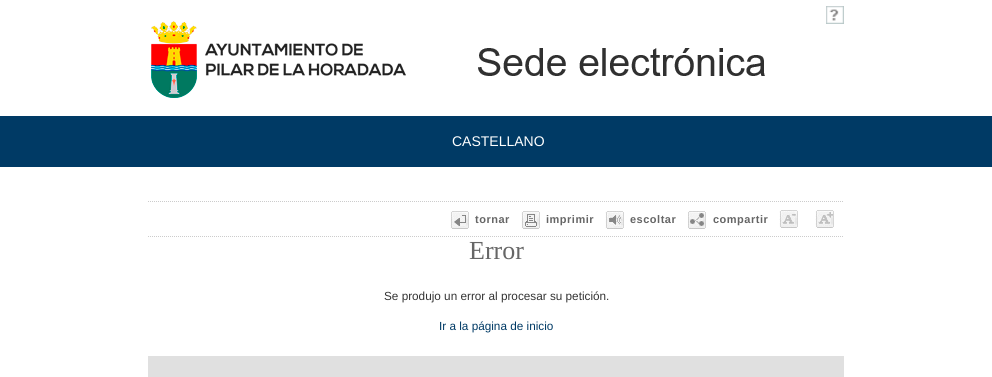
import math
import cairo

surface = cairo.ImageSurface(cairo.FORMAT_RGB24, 992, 377)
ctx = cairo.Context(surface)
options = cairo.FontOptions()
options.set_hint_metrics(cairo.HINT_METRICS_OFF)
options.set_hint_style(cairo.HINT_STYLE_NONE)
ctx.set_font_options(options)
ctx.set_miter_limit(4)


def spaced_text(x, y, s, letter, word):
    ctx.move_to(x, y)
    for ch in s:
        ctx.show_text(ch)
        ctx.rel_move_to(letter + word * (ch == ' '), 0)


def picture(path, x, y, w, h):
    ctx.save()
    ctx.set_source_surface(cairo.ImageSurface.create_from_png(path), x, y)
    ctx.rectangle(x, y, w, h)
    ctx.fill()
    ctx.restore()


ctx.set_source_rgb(1, 1, 1)
ctx.paint()
picture("img1.png", 151, 21, 614, 77)
ctx.set_source_rgb(0, 0.227, 0.396)
ctx.rectangle(0, 116, 992, 51)
ctx.fill()
picture("img2.png", 826, 6, 18, 18)
ctx.select_font_face("Liberation Sans")
ctx.set_font_size(14)
ctx.set_source_rgb(1, 1, 1)
ctx.move_to(452, 146)
ctx.show_text("CASTELLANO")
ctx.new_path()
ctx.move_to(148, 201.5)
ctx.line_to(844, 201.5)
ctx.set_source_rgb(0.8, 0.8, 0.8)
ctx.set_line_width(1)
ctx.set_dash([1, 1])
ctx.stroke()
ctx.new_path()
ctx.move_to(148, 236.5)
ctx.line_to(844, 236.5)
ctx.stroke()
picture("img3.png", 450, 211, 19, 18)
ctx.select_font_face("Liberation Sans", cairo.FONT_SLANT_NORMAL, cairo.FONT_WEIGHT_BOLD)
ctx.set_font_size(11)
ctx.set_source_rgb(0.4, 0.4, 0.4)
spaced_text(475, 223, "tornar", 0.5, 0)
picture("img4.png", 521, 211, 19, 18)
spaced_text(546, 223, "imprimir", 0.5, 0)
picture("img5.png", 605, 211, 19, 18)
spaced_text(630, 223, "escoltar", 0.5, 0)
picture("img6.png", 688, 211, 18, 18)
spaced_text(713, 223, "compartir", 0.5, 0)
picture("img7.png", 779, 210, 19, 18)
picture("img8.png", 815, 210, 19, 18)
ctx.select_font_face("Liberation Serif")
ctx.set_font_size(26)
ctx.move_to(469, 259)
ctx.show_text("Error")
ctx.select_font_face("Liberation Sans")
ctx.set_font_size(11.75)
ctx.set_source_rgb(0.2, 0.2, 0.2)
ctx.move_to(384, 300)
ctx.show_text("Se produjo un error al procesar su petición.")
ctx.set_source_rgb(0, 0.227, 0.396)
ctx.move_to(439, 330)
ctx.show_text("Ir a la página de inicio")
ctx.set_source_rgb(0.878, 0.878, 0.878)
ctx.rectangle(148, 356, 696, 21)
ctx.fill()
surface.write_to_png("page.png")
